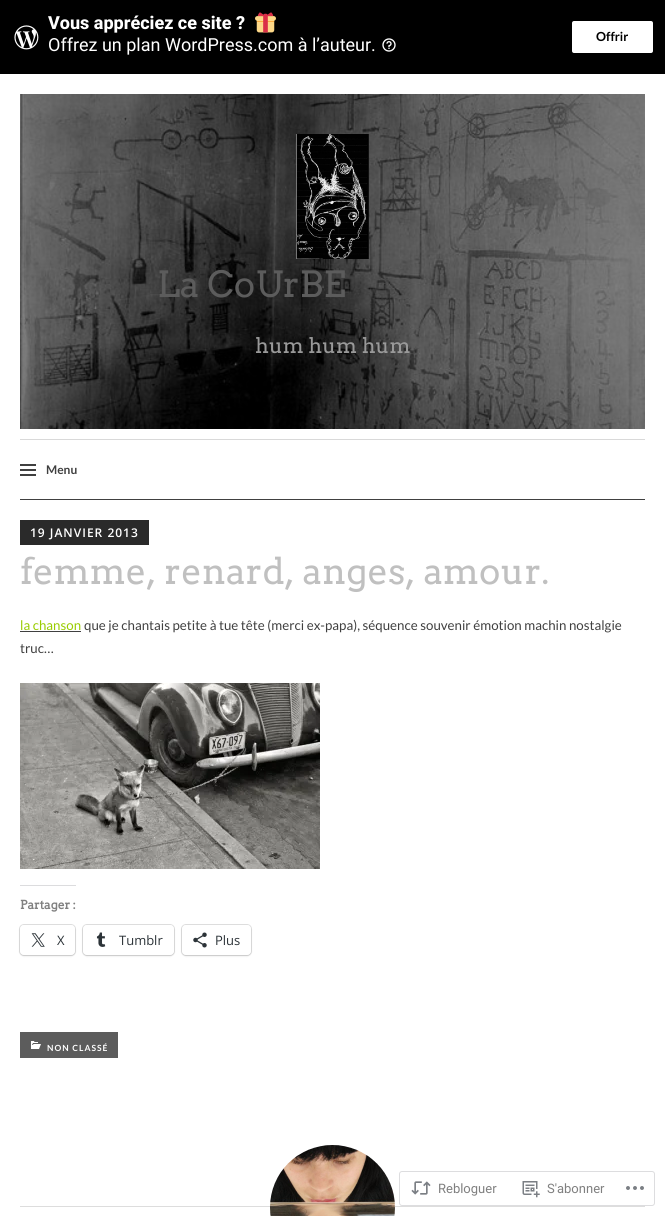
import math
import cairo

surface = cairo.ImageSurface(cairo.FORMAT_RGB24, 665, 1216)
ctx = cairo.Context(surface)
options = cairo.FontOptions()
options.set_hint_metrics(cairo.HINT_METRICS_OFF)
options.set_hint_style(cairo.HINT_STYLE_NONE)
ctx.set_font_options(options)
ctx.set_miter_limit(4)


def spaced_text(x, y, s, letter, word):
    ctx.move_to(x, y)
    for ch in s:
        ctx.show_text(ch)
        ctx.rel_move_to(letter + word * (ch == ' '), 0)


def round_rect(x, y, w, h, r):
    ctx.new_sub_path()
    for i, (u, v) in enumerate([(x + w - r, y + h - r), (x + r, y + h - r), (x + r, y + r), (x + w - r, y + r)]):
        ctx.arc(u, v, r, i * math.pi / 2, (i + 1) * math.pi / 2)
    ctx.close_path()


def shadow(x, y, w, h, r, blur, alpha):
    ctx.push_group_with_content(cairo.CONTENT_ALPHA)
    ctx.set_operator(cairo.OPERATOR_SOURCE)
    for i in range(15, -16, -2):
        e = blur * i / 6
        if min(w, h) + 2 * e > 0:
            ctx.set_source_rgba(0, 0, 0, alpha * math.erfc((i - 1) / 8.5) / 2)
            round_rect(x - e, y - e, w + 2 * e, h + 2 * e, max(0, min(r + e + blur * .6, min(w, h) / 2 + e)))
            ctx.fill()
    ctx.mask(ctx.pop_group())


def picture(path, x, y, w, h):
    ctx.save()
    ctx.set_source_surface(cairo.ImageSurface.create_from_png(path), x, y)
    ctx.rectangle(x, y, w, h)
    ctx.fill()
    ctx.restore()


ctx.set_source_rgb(0, 0, 0)
ctx.paint()
picture("img1.png", 14, 25, 25, 25)
ctx.select_font_face("Roboto ExtraBold")
ctx.set_font_size(18)
ctx.set_source_rgb(1, 1, 1)
ctx.move_to(48, 29)
ctx.show_text("Vous appréciez ce site ?")
picture("img2.png", 255, 12, 21, 21)
ctx.select_font_face("Roboto")
ctx.move_to(48, 51)
ctx.show_text("Offrez un plan WordPress.com à l’auteur.")
picture("img3.png", 382, 38, 14, 14)
round_rect(572, 21, 81, 32, 2)
ctx.fill()
ctx.select_font_face("Lato", cairo.FONT_SLANT_NORMAL, cairo.FONT_WEIGHT_BOLD)
ctx.set_font_size(12.5)
ctx.set_source_rgb(0, 0, 0)
ctx.move_to(596, 41)
ctx.show_text("Offrir")
ctx.set_source_rgb(1, 1, 1)
ctx.rectangle(0, 74, 665, 1142)
ctx.fill()
picture("img4.png", 20, 94, 625, 335)
picture("img5.png", 296, 134, 73, 125)
ctx.select_font_face("Arvo")
ctx.set_font_size(36)
ctx.set_source_rgb(0.361, 0.361, 0.361)
ctx.move_to(157, 297)
ctx.show_text("La CoUrBE")
ctx.set_font_size(21)
ctx.set_source_rgb(0.6, 0.6, 0.6)
ctx.move_to(255, 353)
ctx.show_text("hum hum hum")
ctx.set_source_rgb(0.851, 0.851, 0.851)
ctx.rectangle(20, 439, 625, 1)
ctx.fill()
ctx.set_source_rgb(0.251, 0.251, 0.251)
ctx.rectangle(20, 499, 625, 1)
ctx.fill()
picture("img6.png", 20, 464, 16, 12)
ctx.select_font_face("Lato", cairo.FONT_SLANT_NORMAL, cairo.FONT_WEIGHT_BOLD)
ctx.set_font_size(12)
ctx.move_to(46, 474)
ctx.show_text("Menu")
ctx.set_source_rgb(0.165, 0.165, 0.165)
ctx.rectangle(20, 520, 129, 25)
ctx.fill()
ctx.select_font_face("Open Sans SemiBold")
ctx.set_source_rgb(1, 1, 1)
spaced_text(30, 537, "19 JANVIER 2013", 1, 0)
ctx.select_font_face("Arvo")
ctx.set_font_size(36)
ctx.set_source_rgb(0.753, 0.753, 0.753)
ctx.move_to(20, 584)
ctx.show_text("femme, renard, anges, amour.")
ctx.select_font_face("Lato")
ctx.set_font_size(13.3)
ctx.set_source_rgb(0.6, 0.8, 0)
ctx.move_to(20, 630)
ctx.show_text("la chanson")
ctx.set_source_rgb(0.251, 0.251, 0.251)
ctx.rectangle(20, 631, 61, 1)
ctx.fill()
ctx.move_to(84, 630)
ctx.show_text("que je chantais petite à tue tête (merci ex-papa), séquence souvenir émotion machin nostalgie")
ctx.move_to(20, 653)
ctx.show_text("truc…")
picture("img7.png", 20, 683, 300, 186)
ctx.set_source_rgb(0.863, 0.863, 0.871)
ctx.rectangle(20, 885, 56, 1)
ctx.fill()
ctx.select_font_face("Arvo", cairo.FONT_SLANT_NORMAL, cairo.FONT_WEIGHT_BOLD)
ctx.set_font_size(12)
ctx.set_source_rgb(0.502, 0.502, 0.502)
ctx.move_to(20, 909)
ctx.show_text("Partager :")
round_rect(19.5, 924.5, 56, 31, 4.5)
ctx.set_source_rgb(0.878, 0.878, 0.878)
ctx.set_line_width(1)
ctx.stroke()
ctx.set_source_rgb(0, 0, 0)
shadow(20, 926, 55, 30, 4, 1, 0.12)
ctx.set_source_rgb(1, 1, 1)
round_rect(20, 925, 55, 30, 4)
ctx.fill()
picture("img8.png", 31, 933, 14, 14)
ctx.select_font_face("Open Sans")
ctx.set_font_size(13)
ctx.set_source_rgb(0.173, 0.2, 0.22)
ctx.move_to(57, 945)
ctx.show_text("X")
round_rect(82.5, 924.5, 92, 31, 4.5)
ctx.set_source_rgb(0.878, 0.878, 0.878)
ctx.stroke()
ctx.set_source_rgb(0, 0, 0)
shadow(83, 926, 91, 30, 4, 1, 0.12)
ctx.set_source_rgb(1, 1, 1)
round_rect(83, 925, 91, 30, 4)
ctx.fill()
picture("img9.png", 96, 932, 10, 15)
ctx.set_source_rgb(0.173, 0.2, 0.22)
ctx.move_to(119, 945)
ctx.show_text("Tumblr")
round_rect(181.5, 924.5, 70, 31, 4.5)
ctx.set_source_rgb(0.878, 0.878, 0.878)
ctx.stroke()
ctx.set_source_rgb(0, 0, 0)
shadow(182, 926, 69, 30, 4, 1, 0.12)
ctx.set_source_rgb(1, 1, 1)
round_rect(182, 925, 69, 30, 4)
ctx.fill()
picture("img10.png", 193, 932, 14, 16)
ctx.set_source_rgb(0.173, 0.2, 0.22)
ctx.move_to(215, 945)
ctx.show_text("Plus")
ctx.set_source_rgb(0.361, 0.361, 0.361)
ctx.rectangle(20, 1032, 98, 26)
ctx.fill()
picture("img11.png", 31, 1041, 10, 8)
ctx.select_font_face("Lato", cairo.FONT_SLANT_NORMAL, cairo.FONT_WEIGHT_BOLD)
ctx.set_font_size(8.5)
ctx.set_source_rgb(1, 1, 1)
spaced_text(47, 1051, "NON CLASSÉ", 1, 0)
ctx.set_source_rgb(0.867, 0.867, 0.867)
ctx.rectangle(20, 1206, 625, 1)
ctx.fill()
picture("img12.png", 270, 1145, 125, 71)
round_rect(399.5, 1171.5, 255, 34, 2.5)
ctx.set_source_rgb(0.867, 0.867, 0.875)
ctx.stroke()
picture("img13.png", 411, 1181, 20, 14)
ctx.select_font_face("Roboto")
ctx.set_font_size(13)
ctx.set_source_rgb(0.502, 0.502, 0.502)
ctx.move_to(438, 1193)
ctx.show_text("Rebloguer")
picture("img14.png", 522, 1181, 18, 17)
ctx.move_to(547, 1193)
ctx.show_text("S'abonner")
picture("img15.png", 626, 1186, 18, 4)
surface.write_to_png("page.png")
